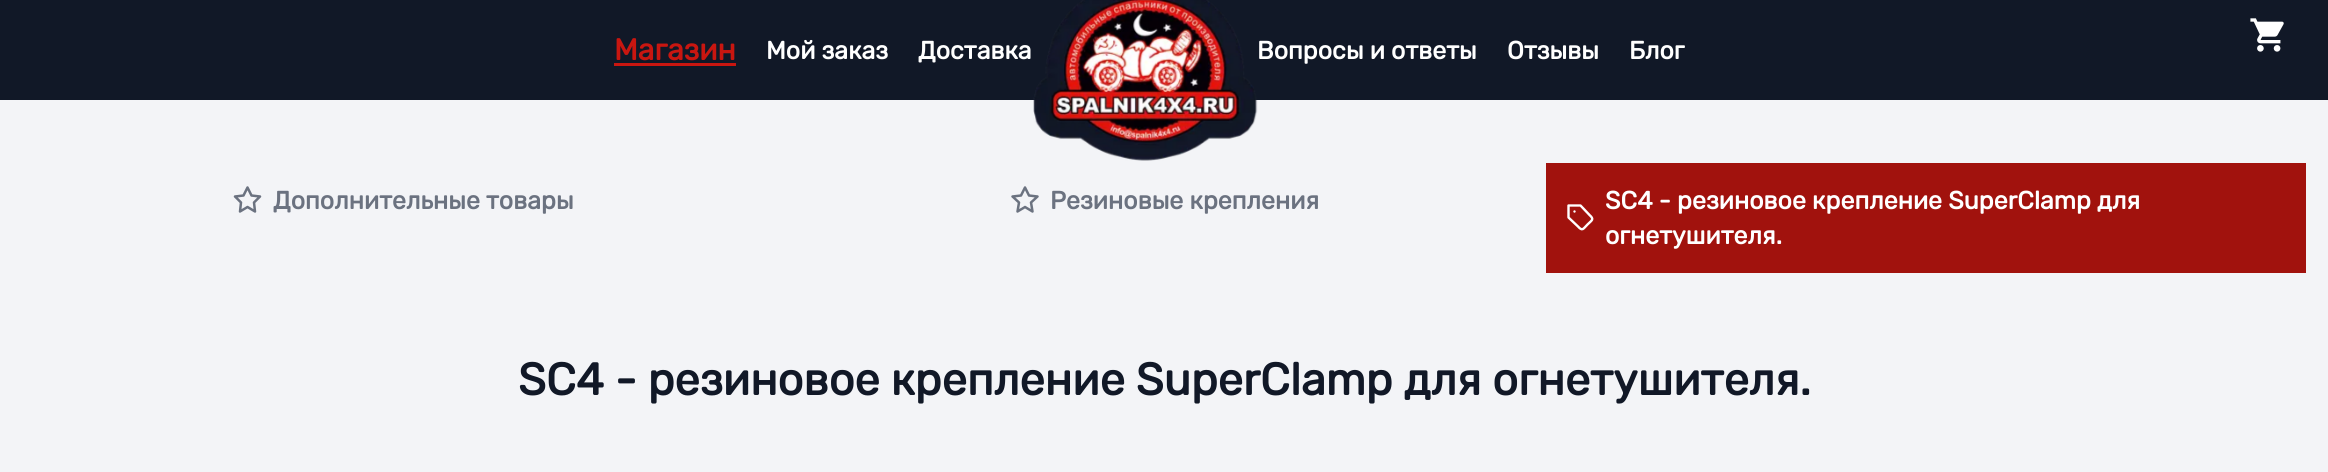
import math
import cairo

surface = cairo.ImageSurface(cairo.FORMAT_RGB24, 2328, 472)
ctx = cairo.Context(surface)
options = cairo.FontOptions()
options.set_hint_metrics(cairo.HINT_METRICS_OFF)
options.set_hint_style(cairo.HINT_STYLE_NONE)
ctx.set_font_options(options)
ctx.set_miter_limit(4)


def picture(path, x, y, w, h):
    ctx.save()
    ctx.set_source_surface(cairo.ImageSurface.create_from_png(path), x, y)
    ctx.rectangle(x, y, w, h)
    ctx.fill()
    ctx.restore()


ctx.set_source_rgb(0.953, 0.957, 0.965)
ctx.paint()
ctx.set_source_rgb(0.067, 0.094, 0.153)
ctx.rectangle(0, 0, 2328, 100)
ctx.fill()
ctx.select_font_face("Rubik", cairo.FONT_SLANT_NORMAL, cairo.FONT_WEIGHT_BOLD)
ctx.set_font_size(30)
ctx.set_source_rgb(0.788, 0.086, 0.063)
ctx.move_to(614, 60)
ctx.show_text("Магазин")
ctx.rectangle(614, 63, 122, 3)
ctx.fill()
ctx.set_font_size(25)
ctx.set_source_rgb(1, 1, 1)
ctx.move_to(766, 59)
ctx.show_text("Мой заказ")
ctx.move_to(918, 59)
ctx.show_text("Доставка")
picture("img1.png", 1033, 0, 225, 161)
ctx.move_to(1257, 59)
ctx.show_text("Вопросы и ответы")
ctx.move_to(1507, 59)
ctx.show_text("Отзывы")
ctx.move_to(1629, 59)
ctx.show_text("Блог")
picture("img2.png", 2250, 18, 34, 34)
ctx.new_path()
ctx.move_to(247.5, 187.5)
ctx.line_to(251.5, 195.5)
ctx.line_to(260, 196.5)
ctx.line_to(254, 202.5)
ctx.line_to(255, 211.5)
ctx.line_to(247.5, 207)
ctx.line_to(240, 211.5)
ctx.line_to(241, 202.5)
ctx.line_to(235, 196.5)
ctx.line_to(243.5, 195.5)
ctx.close_path()
ctx.set_source_rgb(0.42, 0.447, 0.502)
ctx.set_line_width(2.5)
ctx.set_line_cap(cairo.LINE_CAP_ROUND)
ctx.set_line_join(cairo.LINE_JOIN_ROUND)
ctx.stroke()
ctx.move_to(273, 209)
ctx.show_text("Дополнительные товары")
ctx.new_path()
ctx.move_to(1025, 187.5)
ctx.line_to(1029, 195.5)
ctx.line_to(1037.5, 196.5)
ctx.line_to(1031, 202.5)
ctx.line_to(1032.5, 211.5)
ctx.line_to(1025, 207)
ctx.line_to(1017.5, 211.5)
ctx.line_to(1019, 202.5)
ctx.line_to(1012.5, 196.5)
ctx.line_to(1021, 195.5)
ctx.close_path()
ctx.stroke()
ctx.move_to(1050, 209)
ctx.show_text("Резиновые крепления")
ctx.set_source_rgb(0.631, 0.071, 0.051)
ctx.rectangle(1546, 163, 760, 110)
ctx.fill()
ctx.new_path()
ctx.move_to(1580.5, 205.5)
ctx.line_to(1568.5, 205.5)
ctx.line_to(1568.5, 217.5)
ctx.line_to(1578, 226.5)
ctx.curve_to(1582.5, 231.5, 1583, 229, 1587.5, 224.5)
ctx.curve_to(1592, 220, 1594.5, 219.5, 1589.5, 215)
ctx.close_path()
ctx.move_to(1574.5, 211.5)
ctx.line_to(1574.5, 211.5)
ctx.set_source_rgb(1, 1, 1)
ctx.set_line_width(2.4)
ctx.stroke()
ctx.move_to(1605, 209)
ctx.show_text("SC4 - резиновое крепление SuperClamp для")
ctx.move_to(1605, 244)
ctx.show_text("огнетушителя.")
ctx.set_font_size(45)
ctx.set_source_rgb(0.067, 0.094, 0.153)
ctx.move_to(518, 395)
ctx.show_text("SC4 - резиновое крепление SuperClamp для огнетушителя.")
surface.write_to_png("page.png")
